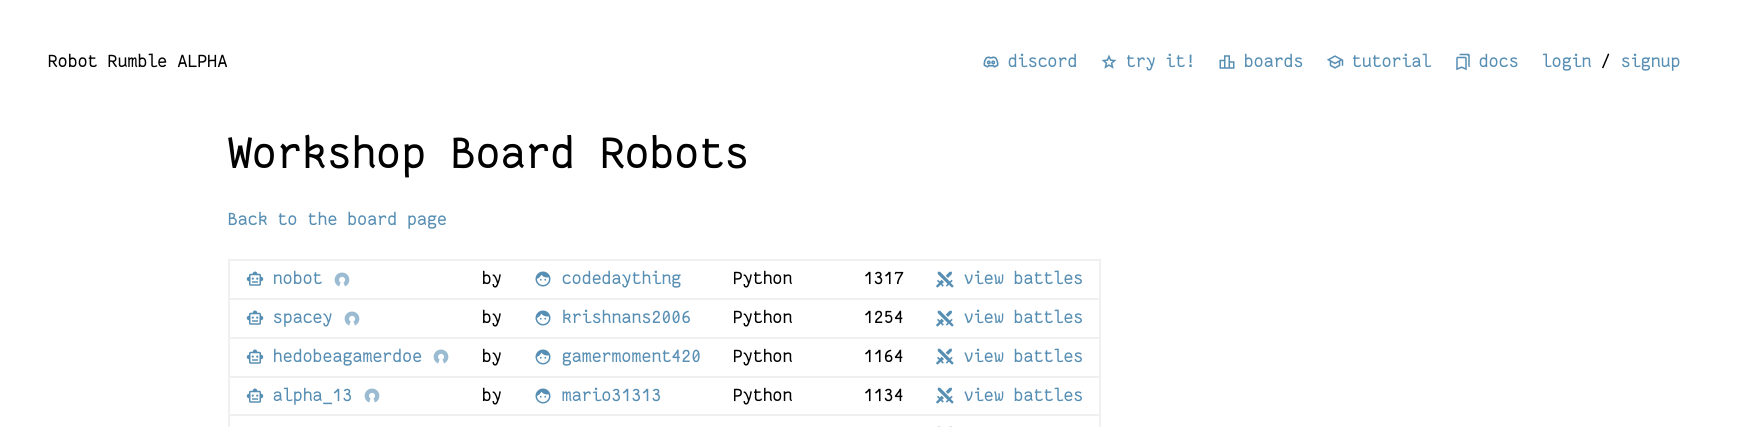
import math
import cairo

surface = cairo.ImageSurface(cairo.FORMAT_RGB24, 1751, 427)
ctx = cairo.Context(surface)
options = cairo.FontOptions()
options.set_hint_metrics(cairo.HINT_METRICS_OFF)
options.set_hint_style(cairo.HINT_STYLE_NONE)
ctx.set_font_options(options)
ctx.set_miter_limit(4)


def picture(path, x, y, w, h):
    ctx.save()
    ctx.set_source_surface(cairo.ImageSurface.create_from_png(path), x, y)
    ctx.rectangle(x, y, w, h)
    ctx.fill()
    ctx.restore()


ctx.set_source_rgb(1, 1, 1)
ctx.paint()
ctx.select_font_face("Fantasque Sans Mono")
ctx.set_font_size(19.25)
ctx.set_source_rgb(0, 0, 0)
ctx.move_to(48, 67)
ctx.show_text("Robot Rumble ALPHA")
picture("img1.png", 983, 56, 16, 12)
ctx.set_source_rgb(0.341, 0.557, 0.702)
ctx.move_to(1008, 67)
ctx.show_text("discord")
picture("img2.png", 1101, 54, 16, 15)
ctx.move_to(1126, 67)
ctx.show_text("try it!")
picture("img3.png", 1219, 55, 16, 14)
ctx.move_to(1244, 67)
ctx.show_text("boards")
picture("img4.png", 1326, 55, 18, 14)
ctx.move_to(1352, 67)
ctx.show_text("tutorial")
picture("img5.png", 1456, 53, 14, 18)
ctx.move_to(1479, 67)
ctx.show_text("docs")
ctx.move_to(1542, 67)
ctx.show_text("login")
ctx.set_source_rgb(0, 0, 0)
ctx.move_to(1601, 67)
ctx.show_text("/")
ctx.set_source_rgb(0.341, 0.557, 0.702)
ctx.move_to(1621, 67)
ctx.show_text("signup")
ctx.set_font_size(48)
ctx.set_source_rgb(0, 0, 0)
ctx.move_to(228, 168)
ctx.show_text("Workshop Board Robots")
ctx.set_font_size(19.25)
ctx.set_source_rgb(0.341, 0.557, 0.702)
ctx.move_to(228, 225)
ctx.show_text("Back to the board page")
ctx.set_source_rgb(0.941, 0.941, 0.941)
ctx.rectangle(228, 259, 873, 2)
ctx.fill()
ctx.rectangle(228, 298, 873, 2)
ctx.fill()
ctx.rectangle(228, 337, 873, 2)
ctx.fill()
ctx.rectangle(228, 376, 873, 2)
ctx.fill()
ctx.rectangle(228, 414, 873, 2)
ctx.fill()
ctx.rectangle(1099, 414, 2, 13)
ctx.fill()
ctx.rectangle(1099, 376, 2, 40)
ctx.fill()
ctx.rectangle(1099, 337, 2, 41)
ctx.fill()
ctx.rectangle(1099, 298, 2, 41)
ctx.fill()
ctx.rectangle(1099, 259, 2, 41)
ctx.fill()
ctx.rectangle(228, 414, 2, 13)
ctx.fill()
ctx.rectangle(228, 376, 2, 40)
ctx.fill()
ctx.rectangle(228, 337, 2, 41)
ctx.fill()
ctx.rectangle(228, 298, 2, 41)
ctx.fill()
ctx.rectangle(228, 259, 2, 41)
ctx.fill()
picture("img6.png", 246, 271, 18, 15)
ctx.set_source_rgb(0.341, 0.557, 0.702)
ctx.move_to(273, 284)
ctx.show_text("nobot")
picture("img7.png", 334, 272, 16, 15)
ctx.set_source_rgb(0, 0, 0)
ctx.move_to(482, 284)
ctx.show_text("by")
picture("img8.png", 535, 271, 16, 16)
ctx.set_source_rgb(0.341, 0.557, 0.702)
ctx.move_to(562, 284)
ctx.show_text("codedaything")
ctx.set_source_rgb(0, 0, 0)
ctx.move_to(733, 284)
ctx.show_text("Python")
ctx.move_to(864, 284)
ctx.show_text("1317")
picture("img9.png", 936, 271, 18, 17)
ctx.set_source_rgb(0.341, 0.557, 0.702)
ctx.move_to(964, 284)
ctx.show_text("view battles")
picture("img6.png", 246, 310, 18, 15)
ctx.move_to(273, 323)
ctx.show_text("spacey")
picture("img7.png", 344, 311, 16, 15)
ctx.set_source_rgb(0, 0, 0)
ctx.move_to(482, 323)
ctx.show_text("by")
picture("img8.png", 535, 310, 16, 16)
ctx.set_source_rgb(0.341, 0.557, 0.702)
ctx.move_to(562, 323)
ctx.show_text("krishnans2006")
ctx.set_source_rgb(0, 0, 0)
ctx.move_to(733, 323)
ctx.show_text("Python")
ctx.move_to(864, 323)
ctx.show_text("1254")
picture("img9.png", 936, 310, 18, 17)
ctx.set_source_rgb(0.341, 0.557, 0.702)
ctx.move_to(964, 323)
ctx.show_text("view battles")
picture("img6.png", 246, 349, 18, 15)
ctx.move_to(273, 362)
ctx.show_text("hedobeagamerdoe")
picture("img7.png", 433, 349, 16, 15)
ctx.set_source_rgb(0, 0, 0)
ctx.move_to(482, 362)
ctx.show_text("by")
picture("img8.png", 535, 349, 16, 16)
ctx.set_source_rgb(0.341, 0.557, 0.702)
ctx.move_to(562, 362)
ctx.show_text("gamermoment420")
ctx.set_source_rgb(0, 0, 0)
ctx.move_to(733, 362)
ctx.show_text("Python")
ctx.move_to(864, 362)
ctx.show_text("1164")
picture("img9.png", 936, 348, 18, 17)
ctx.set_source_rgb(0.341, 0.557, 0.702)
ctx.move_to(964, 362)
ctx.show_text("view battles")
picture("img6.png", 246, 388, 18, 15)
ctx.move_to(273, 401)
ctx.show_text("alpha_13")
picture("img7.png", 364, 388, 16, 15)
ctx.set_source_rgb(0, 0, 0)
ctx.move_to(482, 401)
ctx.show_text("by")
picture("img8.png", 535, 388, 16, 16)
ctx.set_source_rgb(0.341, 0.557, 0.702)
ctx.move_to(562, 401)
ctx.show_text("mario31313")
ctx.set_source_rgb(0, 0, 0)
ctx.move_to(733, 401)
ctx.show_text("Python")
ctx.move_to(864, 401)
ctx.show_text("1134")
picture("img9.png", 936, 387, 18, 17)
ctx.set_source_rgb(0.341, 0.557, 0.702)
ctx.move_to(964, 401)
ctx.show_text("view battles")
picture("img10.png", 937, 426, 15, 1)
surface.write_to_png("page.png")
